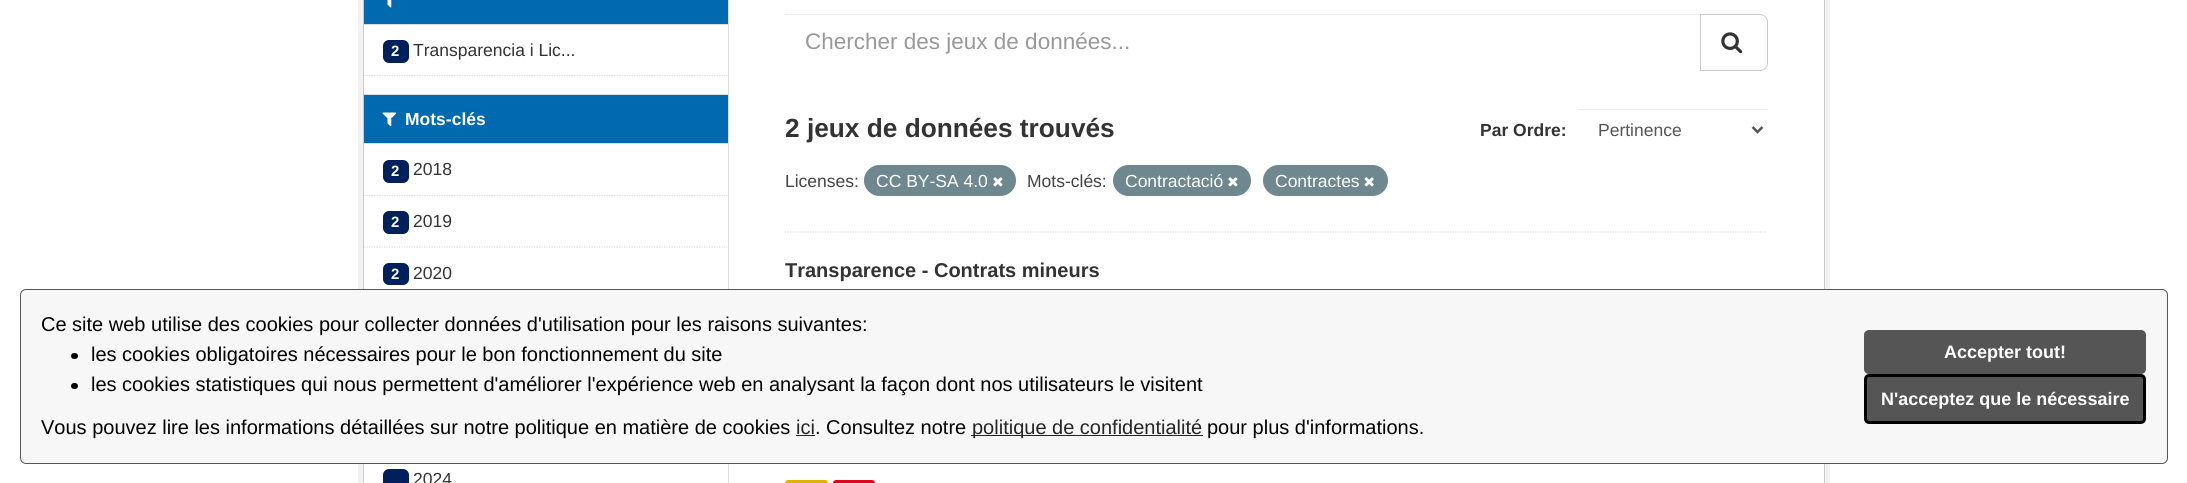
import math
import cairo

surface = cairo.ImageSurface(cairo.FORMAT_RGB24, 2187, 483)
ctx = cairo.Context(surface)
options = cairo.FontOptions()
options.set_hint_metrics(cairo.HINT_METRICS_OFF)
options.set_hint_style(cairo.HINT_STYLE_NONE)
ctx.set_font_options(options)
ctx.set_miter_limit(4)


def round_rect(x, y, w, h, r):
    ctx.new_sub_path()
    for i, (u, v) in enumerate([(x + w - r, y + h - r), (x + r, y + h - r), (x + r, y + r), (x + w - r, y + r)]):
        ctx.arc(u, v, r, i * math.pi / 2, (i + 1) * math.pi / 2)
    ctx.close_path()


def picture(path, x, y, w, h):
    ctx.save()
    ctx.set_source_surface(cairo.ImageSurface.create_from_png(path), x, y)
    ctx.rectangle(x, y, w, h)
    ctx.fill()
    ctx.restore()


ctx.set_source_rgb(1, 1, 1)
ctx.paint()
ctx.rectangle(360.5, -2.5, 1467, 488)
ctx.set_source_rgb(0.949, 0.949, 0.949)
ctx.set_line_width(5)
ctx.stroke()
ctx.rectangle(363.5, -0.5, 1461, 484)
ctx.set_source_rgb(0.8, 0.8, 0.8)
ctx.set_line_width(1)
ctx.stroke()
ctx.set_source_rgb(0, 0.412, 0.686)
ctx.rectangle(364, 0, 364, 24)
ctx.fill()
ctx.set_source_rgb(0.867, 0.867, 0.867)
ctx.rectangle(364, 24, 364, 1)
ctx.fill()
picture("img1.png", 387, 0, 5, 8)
ctx.set_source_rgb(0, 0.125, 0.357)
round_rect(383, 40, 26, 23, 6)
ctx.fill()
ctx.select_font_face("Liberation Sans", cairo.FONT_SLANT_NORMAL, cairo.FONT_WEIGHT_BOLD)
ctx.set_font_size(15)
ctx.set_source_rgb(1, 1, 1)
ctx.move_to(391, 56)
ctx.show_text("2")
ctx.select_font_face("Liberation Sans")
ctx.set_font_size(17.5)
ctx.set_source_rgb(0.2, 0.2, 0.2)
ctx.move_to(413, 56)
ctx.show_text("Transparencia i Lic...")
ctx.new_path()
ctx.move_to(364, 75.5)
ctx.line_to(727.5, 75.5)
ctx.set_source_rgb(0.867, 0.867, 0.867)
ctx.set_line_width(1.2)
ctx.set_dash([1.25, 1.25])
ctx.stroke()
ctx.set_source_rgb(0, 0.412, 0.686)
ctx.rectangle(364, 95, 364, 48)
ctx.fill()
ctx.set_source_rgb(0.867, 0.867, 0.867)
ctx.rectangle(364, 94, 364, 1)
ctx.fill()
ctx.rectangle(364, 143, 364, 1)
ctx.fill()
picture("img2.png", 382, 112, 15, 15)
ctx.select_font_face("Liberation Sans", cairo.FONT_SLANT_NORMAL, cairo.FONT_WEIGHT_BOLD)
ctx.set_source_rgb(1, 1, 1)
ctx.move_to(405, 125)
ctx.show_text("Mots-clés")
ctx.new_path()
ctx.move_to(364, 195.5)
ctx.line_to(727.5, 195.5)
ctx.set_source_rgb(0.867, 0.867, 0.867)
ctx.stroke()
ctx.set_source_rgb(0, 0.125, 0.357)
round_rect(383, 160, 26, 23, 6)
ctx.fill()
ctx.set_font_size(15)
ctx.set_source_rgb(1, 1, 1)
ctx.move_to(391, 176)
ctx.show_text("2")
ctx.select_font_face("Liberation Sans")
ctx.set_font_size(17.5)
ctx.set_source_rgb(0.2, 0.2, 0.2)
ctx.move_to(413, 175)
ctx.show_text("2018")
ctx.new_path()
ctx.move_to(364, 247)
ctx.line_to(727.5, 247)
ctx.set_source_rgb(0.867, 0.867, 0.867)
ctx.stroke()
ctx.set_source_rgb(0, 0.125, 0.357)
round_rect(383, 211, 26, 23, 6)
ctx.fill()
ctx.select_font_face("Liberation Sans", cairo.FONT_SLANT_NORMAL, cairo.FONT_WEIGHT_BOLD)
ctx.set_font_size(15)
ctx.set_source_rgb(1, 1, 1)
ctx.move_to(391, 227)
ctx.show_text("2")
ctx.select_font_face("Liberation Sans")
ctx.set_font_size(17.5)
ctx.set_source_rgb(0.2, 0.2, 0.2)
ctx.move_to(413, 227)
ctx.show_text("2019")
ctx.set_source_rgb(0, 0.125, 0.357)
round_rect(383, 263, 26, 22, 6)
ctx.fill()
ctx.select_font_face("Liberation Sans", cairo.FONT_SLANT_NORMAL, cairo.FONT_WEIGHT_BOLD)
ctx.set_font_size(15)
ctx.set_source_rgb(1, 1, 1)
ctx.move_to(391, 279)
ctx.show_text("2")
ctx.select_font_face("Liberation Sans")
ctx.set_font_size(17.5)
ctx.set_source_rgb(0.2, 0.2, 0.2)
ctx.move_to(413, 279)
ctx.show_text("2020")
ctx.set_source_rgb(0, 0.125, 0.357)
round_rect(383, 469, 26, 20, 6)
ctx.fill()
ctx.set_source_rgb(0.2, 0.2, 0.2)
ctx.move_to(413, 485)
ctx.show_text("2024")
ctx.set_source_rgb(0.867, 0.867, 0.867)
ctx.rectangle(728, 0, 1, 483)
ctx.fill()
ctx.new_path()
ctx.move_to(785, 232)
ctx.line_to(1767.5, 232)
ctx.stroke()
ctx.set_source_rgb(0.925, 0.925, 0.925)
ctx.rectangle(785, 14, 916, 1)
ctx.fill()
ctx.set_font_size(22.5)
ctx.set_source_rgb(0.6, 0.6, 0.6)
ctx.move_to(805, 49)
ctx.show_text("Chercher des jeux de données...")
ctx.set_source_rgb(1, 1, 1)
ctx.new_path()
ctx.move_to(1700.5, 14.5)
ctx.line_to(1760, 14.5)
ctx.curve_to(1764, 14.5, 1767.5, 18, 1767.5, 22)
ctx.line_to(1767.5, 63)
ctx.curve_to(1767.5, 67, 1764, 70.5, 1760, 70.5)
ctx.line_to(1700.5, 70.5)
ctx.close_path()
ctx.fill_preserve()
ctx.set_source_rgb(0.8, 0.8, 0.8)
ctx.set_line_width(1)
ctx.set_dash([])
ctx.stroke()
picture("img3.png", 1721, 32, 22, 22)
ctx.select_font_face("Liberation Sans", cairo.FONT_SLANT_NORMAL, cairo.FONT_WEIGHT_BOLD)
ctx.set_font_size(26.25)
ctx.set_source_rgb(0.2, 0.2, 0.2)
ctx.move_to(785, 137)
ctx.show_text("2 jeux de données trouvés")
ctx.set_font_size(17.5)
ctx.move_to(1480, 136)
ctx.show_text("Par Ordre:")
ctx.set_source_rgb(0.925, 0.925, 0.925)
ctx.rectangle(1578, 109, 190, 1)
ctx.fill()
ctx.new_path()
ctx.move_to(1752.5, 127)
ctx.line_to(1757.5, 132)
ctx.line_to(1762.5, 127)
ctx.set_source_rgb(0.333, 0.333, 0.333)
ctx.set_line_width(2.5)
ctx.stroke()
ctx.select_font_face("Liberation Sans")
ctx.move_to(1598, 136)
ctx.show_text("Pertinence")
ctx.set_source_rgb(0.267, 0.267, 0.267)
ctx.move_to(785, 187)
ctx.show_text("Licenses:")
ctx.set_source_rgb(0.435, 0.533, 0.565)
round_rect(864, 165, 152, 31, 15.5)
ctx.fill()
ctx.set_source_rgb(1, 1, 1)
ctx.move_to(876, 187)
ctx.show_text("CC BY-SA 4.0")
picture("img4.png", 993, 177, 10, 10)
ctx.set_source_rgb(0.267, 0.267, 0.267)
ctx.move_to(1027, 187)
ctx.show_text("Mots-clés:")
ctx.set_source_rgb(0.435, 0.533, 0.565)
round_rect(1113, 165, 138, 31, 15.5)
ctx.fill()
ctx.set_source_rgb(1, 1, 1)
ctx.move_to(1125, 187)
ctx.show_text("Contractació")
picture("img4.png", 1228, 177, 10, 10)
ctx.set_source_rgb(0.435, 0.533, 0.565)
round_rect(1263, 165, 125, 31, 15.5)
ctx.fill()
ctx.set_source_rgb(1, 1, 1)
ctx.move_to(1275, 187)
ctx.show_text("Contractes")
picture("img5.png", 1364, 177, 10, 10)
ctx.select_font_face("Liberation Sans", cairo.FONT_SLANT_NORMAL, cairo.FONT_WEIGHT_BOLD)
ctx.set_font_size(20)
ctx.set_source_rgb(0.2, 0.2, 0.2)
ctx.move_to(785, 277)
ctx.show_text("Transparence - Contrats mineurs")
ctx.set_source_rgb(0.875, 0.694, 0)
round_rect(785, 480, 43, 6, 3)
ctx.fill()
ctx.set_source_rgb(0.878, 0.02, 0.118)
round_rect(833, 480, 42, 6, 3)
ctx.fill()
ctx.set_source_rgb(0.965, 0.965, 0.965)
round_rect(20.5, 289.5, 2147, 174, 5.5)
ctx.fill_preserve()
ctx.set_source_rgb(0.333, 0.333, 0.333)
ctx.set_line_width(1)
ctx.stroke()
ctx.select_font_face("Liberation Sans")
ctx.set_source_rgb(0, 0, 0)
ctx.move_to(41, 331)
ctx.show_text("Ce site web utilise des cookies pour collecter données d'utilisation pour les raisons suivantes:")
round_rect(71, 353, 7, 6, 3)
ctx.fill()
ctx.move_to(91, 361)
ctx.show_text("les cookies obligatoires nécessaires pour le bon fonctionnement du site")
round_rect(71, 383, 7, 6, 3)
ctx.fill()
ctx.move_to(91, 391)
ctx.show_text("les cookies statistiques qui nous permettent d'améliorer l'expérience web en analysant la façon dont nos utilisateurs le visitent")
ctx.move_to(41, 434)
ctx.show_text("Vous pouvez lire les informations détaillées sur notre politique en matière de cookies")
ctx.set_source_rgb(0.145, 0.145, 0.145)
ctx.move_to(796, 434)
ctx.show_text("ici")
ctx.rectangle(796, 435, 19, 1)
ctx.fill()
ctx.set_source_rgb(0, 0, 0)
ctx.move_to(815, 434)
ctx.show_text(". Consultez notre")
ctx.set_source_rgb(0.145, 0.145, 0.145)
ctx.rectangle(971, 435, 232, 1)
ctx.fill()
ctx.move_to(972, 434)
ctx.show_text("politique de confidentialité")
ctx.set_source_rgb(0, 0, 0)
ctx.move_to(1207, 434)
ctx.show_text("pour plus d'informations.")
ctx.set_source_rgb(0.333, 0.333, 0.333)
round_rect(1864, 330, 282, 44, 5)
ctx.fill()
ctx.select_font_face("Liberation Sans", cairo.FONT_SLANT_NORMAL, cairo.FONT_WEIGHT_BOLD)
ctx.set_font_size(18)
ctx.set_source_rgb(1, 1, 1)
ctx.move_to(1944, 358)
ctx.show_text("Accepter tout!")
ctx.set_source_rgb(0.333, 0.333, 0.333)
round_rect(1865.5, 375.5, 279, 47, 3.5)
ctx.fill_preserve()
ctx.set_source_rgb(0, 0, 0)
ctx.set_line_width(3)
ctx.stroke()
ctx.set_source_rgb(1, 1, 1)
ctx.move_to(1881, 405)
ctx.show_text("N'acceptez que le nécessaire")
surface.write_to_png("page.png")
